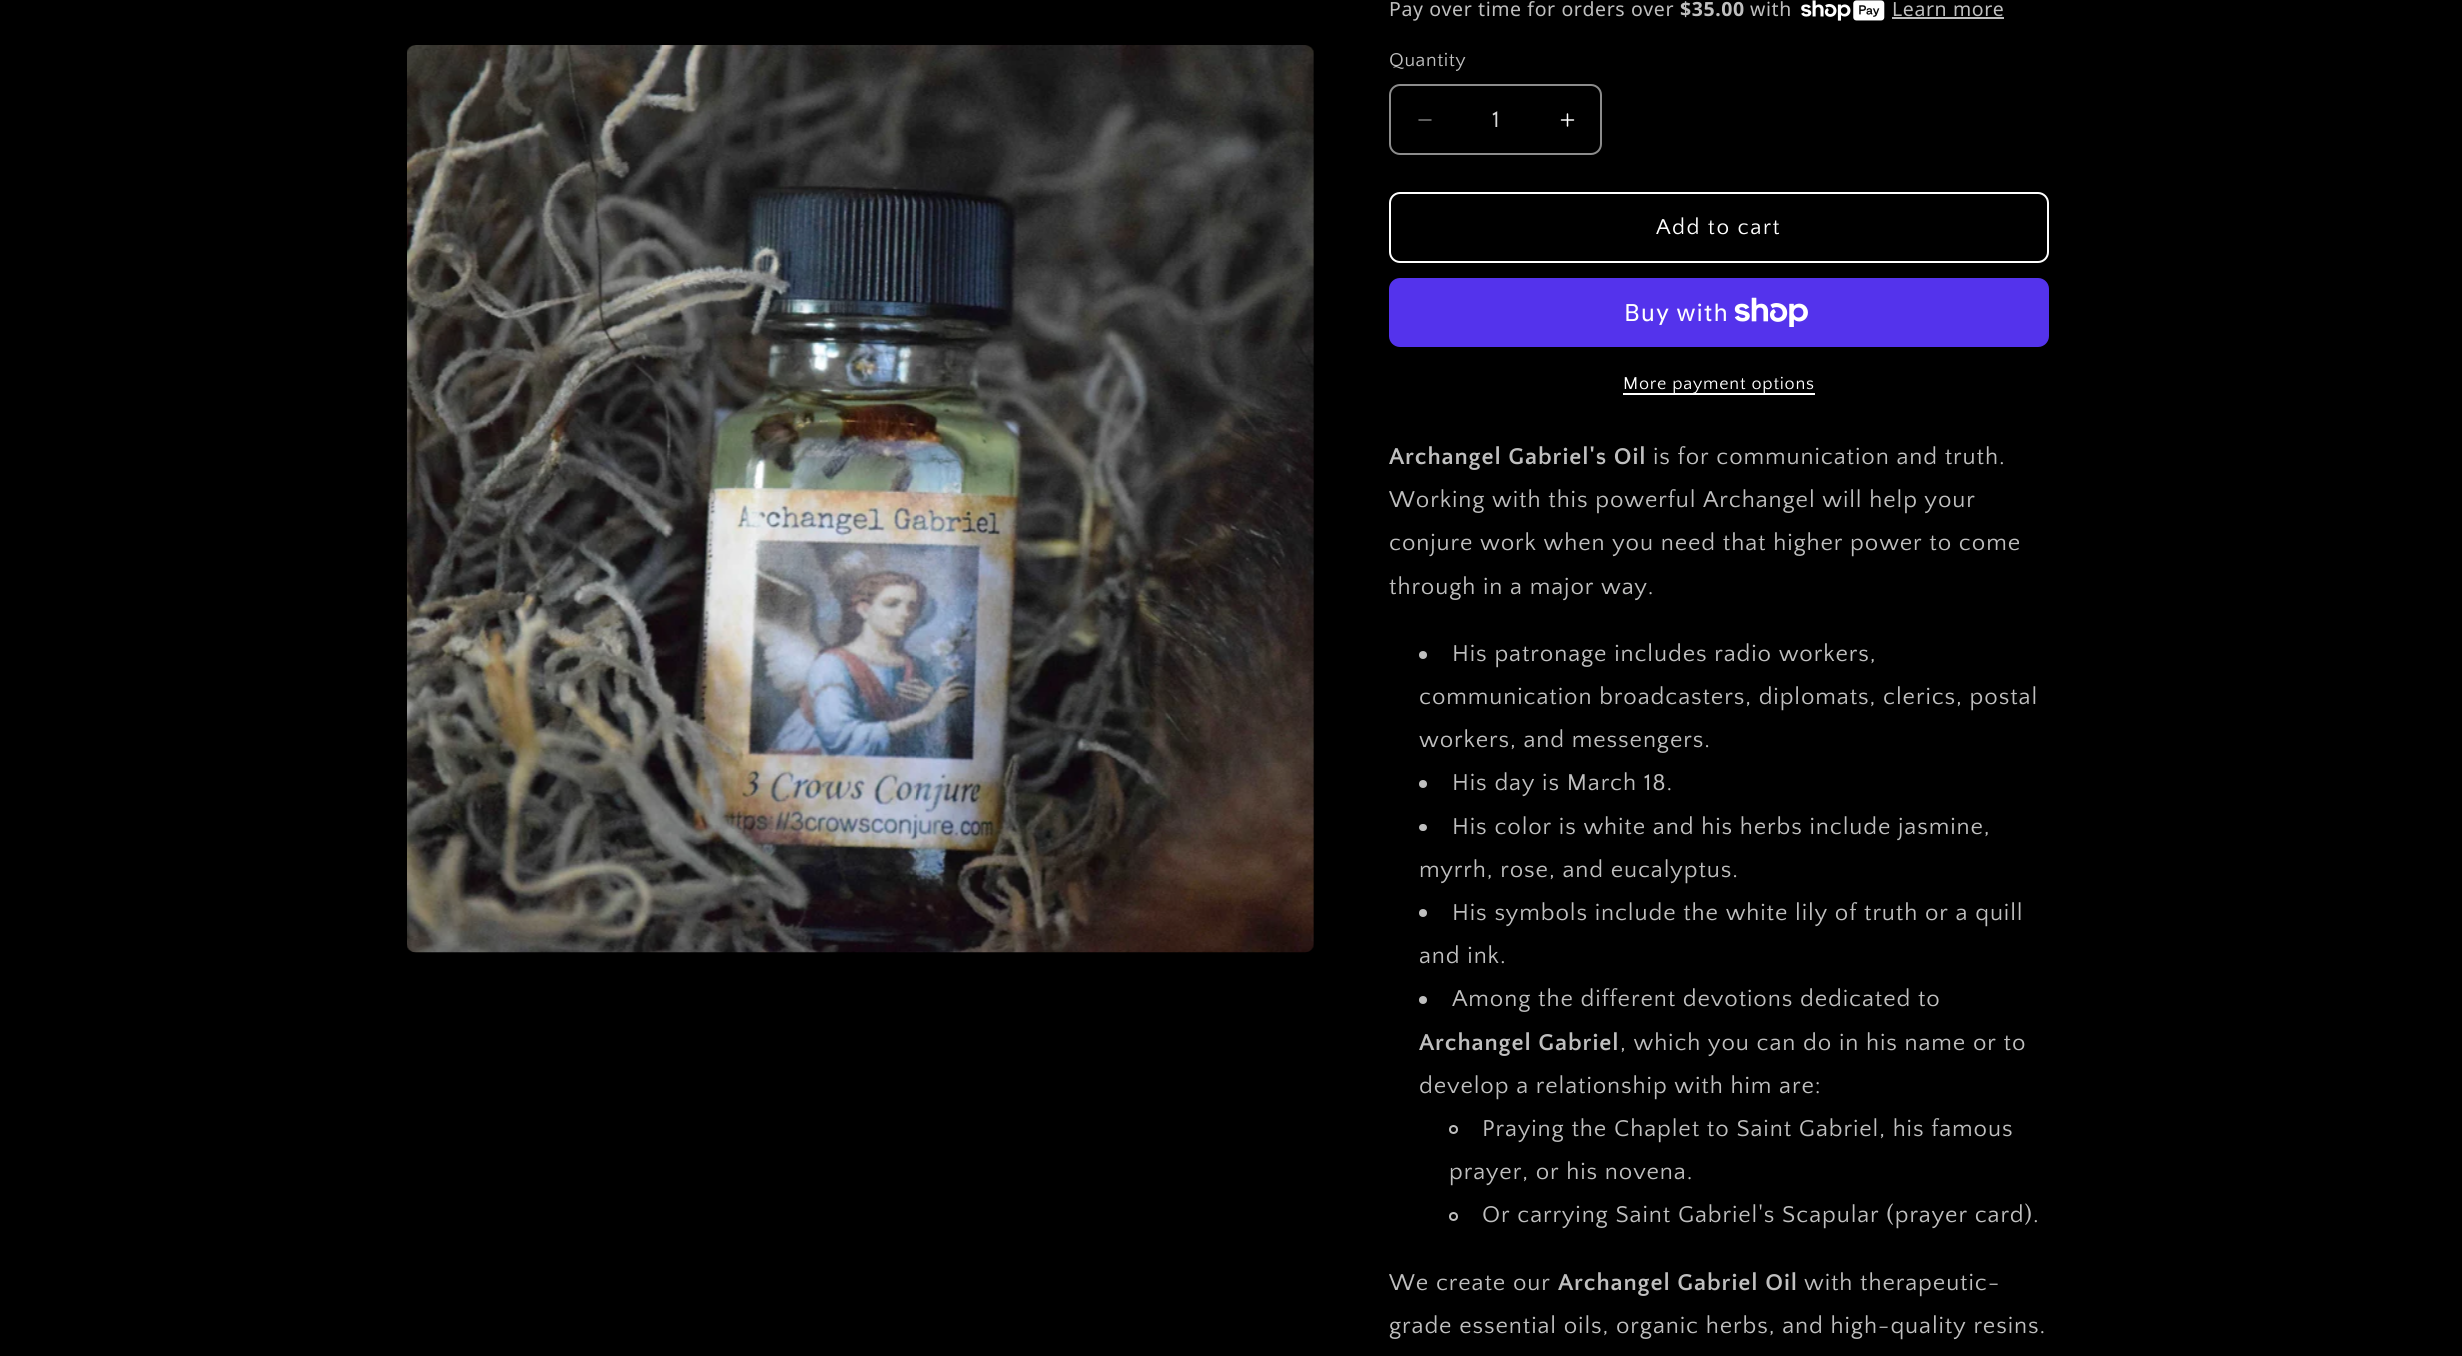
import math
import cairo

surface = cairo.ImageSurface(cairo.FORMAT_RGB24, 2462, 1356)
ctx = cairo.Context(surface)
options = cairo.FontOptions()
options.set_hint_metrics(cairo.HINT_METRICS_OFF)
options.set_hint_style(cairo.HINT_STYLE_NONE)
ctx.set_font_options(options)
ctx.set_miter_limit(4)


def spaced_text(x, y, s, letter, word):
    ctx.move_to(x, y)
    for ch in s:
        ctx.show_text(ch)
        ctx.rel_move_to(letter + word * (ch == ' '), 0)


def round_rect(x, y, w, h, r):
    ctx.new_sub_path()
    for i, (u, v) in enumerate([(x + w - r, y + h - r), (x + r, y + h - r), (x + r, y + r), (x + w - r, y + r)]):
        ctx.arc(u, v, r, i * math.pi / 2, (i + 1) * math.pi / 2)
    ctx.close_path()


def picture(path, x, y, w, h):
    ctx.save()
    ctx.set_source_surface(cairo.ImageSurface.create_from_png(path), x, y)
    ctx.rectangle(x, y, w, h)
    ctx.fill()
    ctx.restore()


ctx.set_source_rgb(0, 0, 0)
ctx.paint()
picture("img1.png", 407, 45, 907, 908)
ctx.select_font_face("Noto Sans")
ctx.set_font_size(19.5)
ctx.set_source_rgb(0.749, 0.749, 0.749)
spaced_text(1389, 16, "Pay over time for orders over", 0.6, 0)
ctx.select_font_face("Noto Sans", cairo.FONT_SLANT_NORMAL, cairo.FONT_WEIGHT_BOLD)
spaced_text(1680, 16, "$35.00", 0.6, 0)
ctx.select_font_face("Noto Sans")
spaced_text(1750, 16, "with", 0.6, 0)
picture("img2.png", 1801, 0, 84, 21)
spaced_text(1892, 16, "Learn more", 0.6, 0)
ctx.rectangle(1892, 17, 112, 2)
ctx.fill()
ctx.select_font_face("Quattrocento Sans")
spaced_text(1389, 66, "Quantity", 0.6, 0)
picture("img3.png", 1418, 119, 14, 2)
picture("img4.png", 1560, 113, 15, 14)
round_rect(1390, 85, 211, 69, 10)
ctx.set_source_rgb(0.549, 0.549, 0.549)
ctx.stroke()
ctx.set_font_size(24)
ctx.set_source_rgb(0.851, 0.851, 0.851)
ctx.move_to(1492, 127)
ctx.show_text("1")
round_rect(1390, 193, 658, 69, 10)
ctx.set_source_rgb(1, 1, 1)
ctx.stroke()
ctx.set_font_size(22.5)
spaced_text(1656, 234, "Add to cart", 1.5, 0)
ctx.set_source_rgb(0.329, 0.2, 0.922)
round_rect(1389, 278, 660, 69, 11)
ctx.fill()
ctx.select_font_face("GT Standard")
ctx.set_font_size(24)
ctx.set_source_rgb(1, 1, 1)
spaced_text(1624, 321, "Buy with", 0.9, 0)
picture("img5.png", 1734, 297, 74, 30)
ctx.rectangle(1623, 393, 192, 2)
ctx.fill()
ctx.select_font_face("Quattrocento Sans")
ctx.set_font_size(18)
spaced_text(1623, 389, "More payment options", 0.75, 0)
ctx.select_font_face("Quattrocento Sans", cairo.FONT_SLANT_NORMAL, cairo.FONT_WEIGHT_BOLD)
ctx.set_font_size(24)
ctx.set_source_rgb(0.749, 0.749, 0.749)
spaced_text(1389, 464, "Archangel Gabriel's Oil", 0.9, 0)
ctx.select_font_face("Quattrocento Sans")
spaced_text(1653, 464, "is for communication and truth.", 0.9, 0)
spaced_text(1389, 507, "Working with this powerful Archangel will help your", 0.9, 0)
spaced_text(1389, 550, "conjure work when you need that higher power to come", 0.9, 0)
spaced_text(1389, 594, "through in a major way.", 0.9, 0)
ctx.new_path()
ctx.arc(1423, 655, 4, 0, 2 * math.pi)
ctx.fill()
spaced_text(1452, 661, "His patronage includes radio workers,", 0.9, 0)
spaced_text(1419, 704, "communication broadcasters, diplomats, clerics, postal", 0.9, 0)
spaced_text(1419, 747, "workers, and messengers.", 0.9, 0)
ctx.new_path()
ctx.arc(1423, 784, 4, 0, 2 * math.pi)
ctx.fill()
spaced_text(1452, 790, "His day is March 18.", 0.9, 0)
round_rect(1419, 824, 8, 7, 3.5)
ctx.fill()
spaced_text(1452, 834, "His color is white and his herbs include jasmine,", 0.9, 0)
spaced_text(1419, 877, "myrrh, rose, and eucalyptus.", 0.9, 0)
ctx.new_path()
ctx.arc(1423, 913, 4, 0, 2 * math.pi)
ctx.fill()
spaced_text(1452, 920, "His symbols include the white lily of truth or a quill", 0.9, 0)
spaced_text(1419, 963, "and ink.", 0.9, 0)
ctx.new_path()
ctx.arc(1423, 1000, 4, 0, 2 * math.pi)
ctx.fill()
spaced_text(1452, 1006, "Among the different devotions dedicated to", 0.9, 0)
ctx.select_font_face("Quattrocento Sans", cairo.FONT_SLANT_NORMAL, cairo.FONT_WEIGHT_BOLD)
spaced_text(1419, 1050, "Archangel Gabriel", 0.9, 0)
ctx.select_font_face("Quattrocento Sans")
spaced_text(1620, 1050, ", which you can do in his name or to", 0.9, 0)
spaced_text(1419, 1093, "develop a relationship with him are:", 0.9, 0)
ctx.new_path()
ctx.arc(1453.5, 1129.5, 3.5, 0, 2 * math.pi)
ctx.stroke()
spaced_text(1482, 1136, "Praying the Chaplet to Saint Gabriel, his famous", 0.9, 0)
spaced_text(1449, 1179, "prayer, or his novena.", 0.9, 0)
ctx.new_path()
ctx.arc(1453.5, 1216.5, 3.5, 0, 2 * math.pi)
ctx.stroke()
spaced_text(1482, 1222, "Or carrying Saint Gabriel's Scapular (prayer card).", 0.9, 0)
spaced_text(1389, 1290, "We create our", 0.9, 0)
ctx.select_font_face("Quattrocento Sans", cairo.FONT_SLANT_NORMAL, cairo.FONT_WEIGHT_BOLD)
spaced_text(1558, 1290, "Archangel Gabriel Oil", 0.9, 0)
ctx.select_font_face("Quattrocento Sans")
spaced_text(1804, 1290, "with therapeutic-", 0.9, 0)
spaced_text(1389, 1333, "grade essential oils, organic herbs, and high-quality resins.", 0.9, 0)
surface.write_to_png("page.png")
